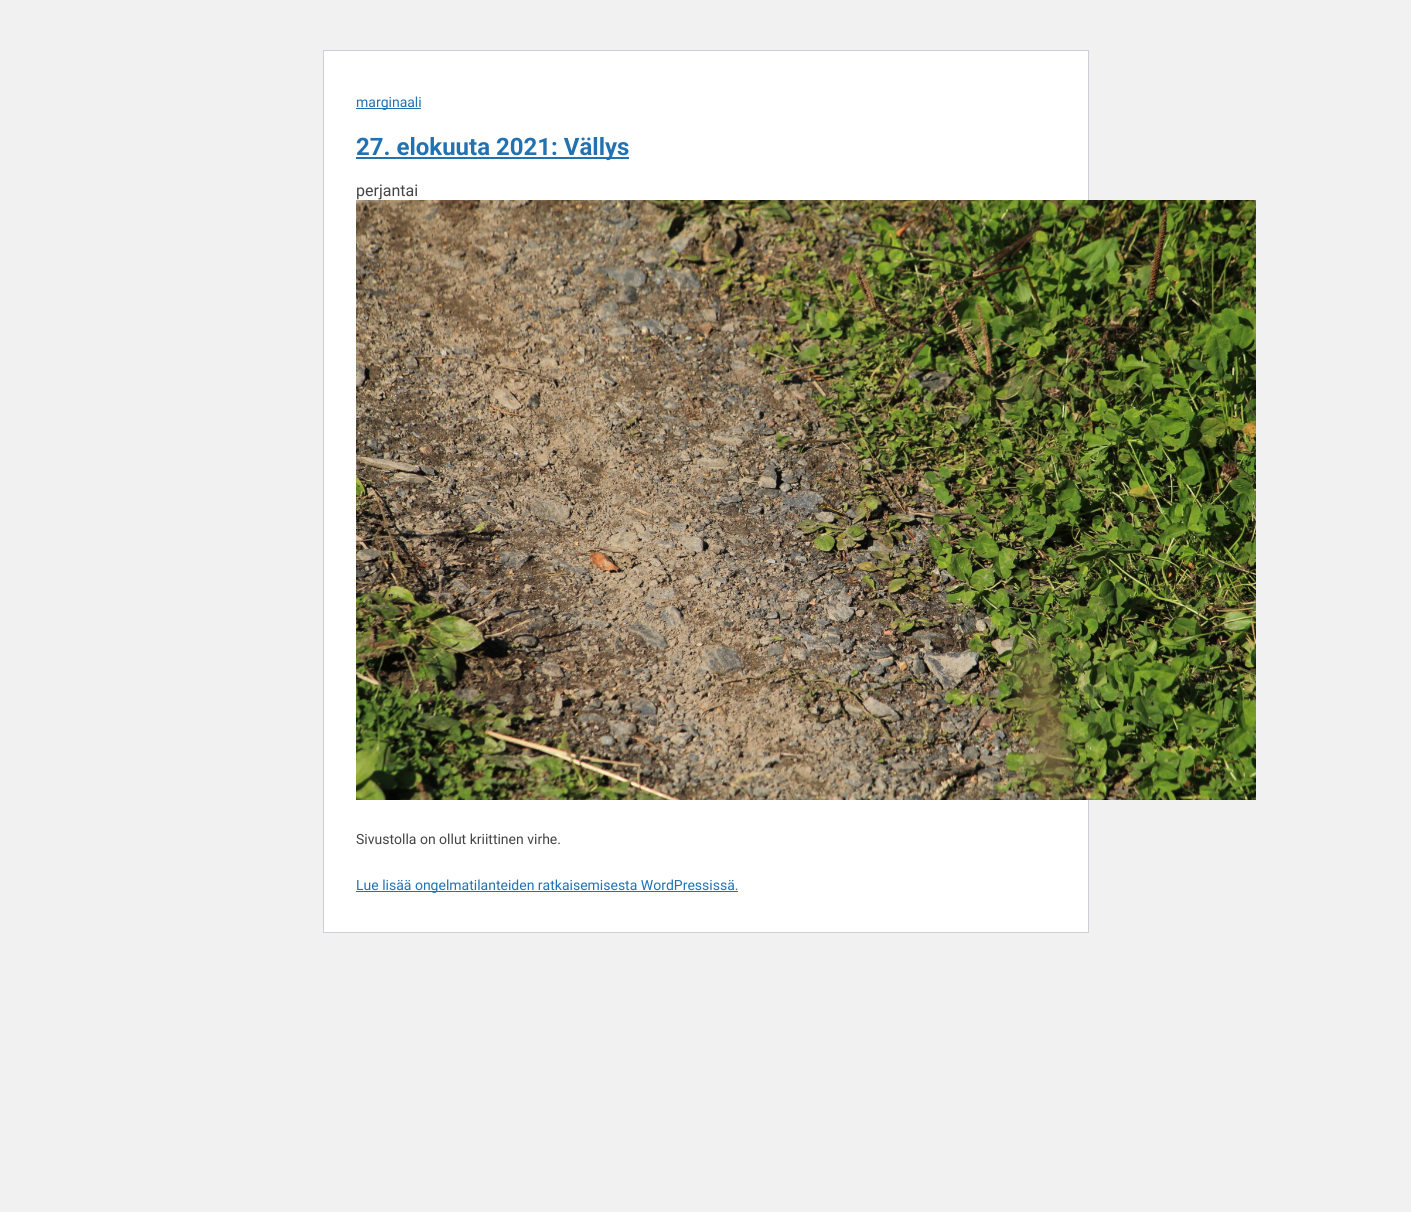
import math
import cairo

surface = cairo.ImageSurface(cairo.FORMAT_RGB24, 1411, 1212)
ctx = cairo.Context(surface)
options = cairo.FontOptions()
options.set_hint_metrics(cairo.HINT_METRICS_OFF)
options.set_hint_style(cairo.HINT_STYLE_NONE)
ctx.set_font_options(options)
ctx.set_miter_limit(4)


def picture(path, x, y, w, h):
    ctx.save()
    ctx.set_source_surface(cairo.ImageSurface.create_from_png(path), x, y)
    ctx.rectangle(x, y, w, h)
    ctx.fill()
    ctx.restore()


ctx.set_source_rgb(0.945, 0.945, 0.945)
ctx.paint()
ctx.set_source_rgb(1, 1, 1)
ctx.rectangle(323.5, 50.5, 765, 882)
ctx.fill_preserve()
ctx.set_source_rgb(0.8, 0.816, 0.831)
ctx.set_line_width(1)
ctx.stroke()
ctx.set_source_rgb(0.133, 0.443, 0.694)
ctx.rectangle(356, 108, 65, 1)
ctx.fill()
ctx.select_font_face("Roboto")
ctx.set_font_size(14)
ctx.move_to(356, 107)
ctx.show_text("marginaali")
ctx.rectangle(356, 157, 273, 2)
ctx.fill()
ctx.select_font_face("Roboto", cairo.FONT_SLANT_NORMAL, cairo.FONT_WEIGHT_BOLD)
ctx.set_font_size(24)
ctx.move_to(356, 155)
ctx.show_text("27. elokuuta 2021: Vällys")
ctx.select_font_face("Roboto")
ctx.set_font_size(16)
ctx.set_source_rgb(0.267, 0.267, 0.267)
ctx.move_to(356, 196)
ctx.show_text("perjantai")
picture("img1.png", 356, 200, 900, 600)
ctx.set_font_size(14)
ctx.move_to(356, 844)
ctx.show_text("Sivustolla on ollut kriittinen virhe.")
ctx.set_source_rgb(0.133, 0.443, 0.694)
ctx.rectangle(356, 891, 382, 1)
ctx.fill()
ctx.move_to(356, 890)
ctx.show_text("Lue lisää ongelmatilanteiden ratkaisemisesta WordPressissä.")
surface.write_to_png("page.png")
